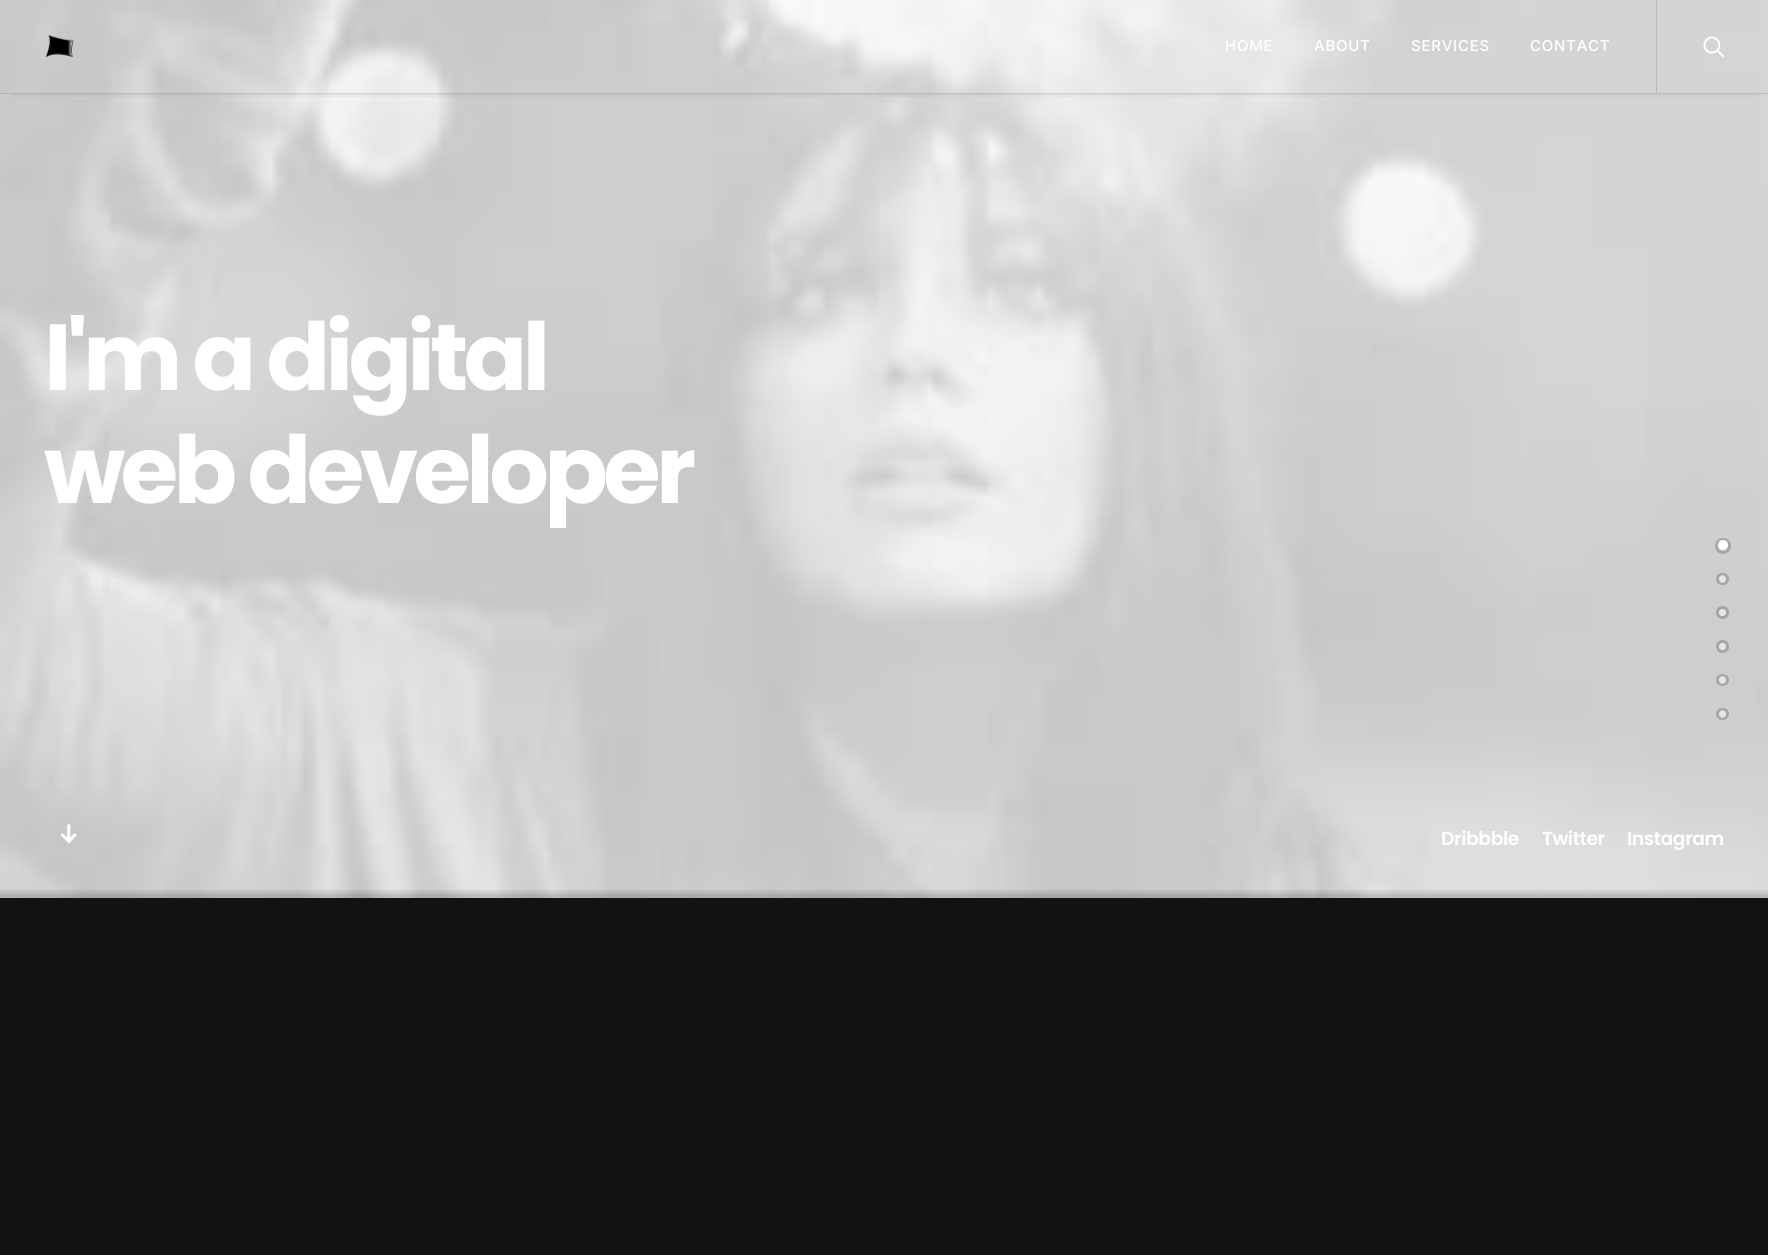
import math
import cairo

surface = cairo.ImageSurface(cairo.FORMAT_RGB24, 1768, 1255)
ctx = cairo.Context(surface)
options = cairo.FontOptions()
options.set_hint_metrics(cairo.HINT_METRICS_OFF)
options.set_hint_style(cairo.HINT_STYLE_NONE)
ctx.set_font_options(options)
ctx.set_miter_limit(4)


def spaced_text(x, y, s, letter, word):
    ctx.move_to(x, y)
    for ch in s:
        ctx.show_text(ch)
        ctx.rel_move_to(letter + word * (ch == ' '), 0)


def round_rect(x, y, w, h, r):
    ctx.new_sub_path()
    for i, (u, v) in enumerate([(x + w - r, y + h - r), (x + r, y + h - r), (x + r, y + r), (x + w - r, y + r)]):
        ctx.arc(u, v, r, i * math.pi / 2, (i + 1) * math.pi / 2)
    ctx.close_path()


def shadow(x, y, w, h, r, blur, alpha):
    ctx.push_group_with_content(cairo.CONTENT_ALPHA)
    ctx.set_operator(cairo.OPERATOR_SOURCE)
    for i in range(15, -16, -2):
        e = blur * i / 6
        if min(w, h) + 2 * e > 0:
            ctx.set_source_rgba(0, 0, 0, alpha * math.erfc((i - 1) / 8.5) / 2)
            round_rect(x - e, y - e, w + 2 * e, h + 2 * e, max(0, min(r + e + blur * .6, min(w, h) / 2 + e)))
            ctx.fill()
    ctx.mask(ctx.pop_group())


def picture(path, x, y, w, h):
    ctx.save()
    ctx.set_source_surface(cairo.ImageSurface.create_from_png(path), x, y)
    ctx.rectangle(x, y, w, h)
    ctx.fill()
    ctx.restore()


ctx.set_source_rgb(0.063, 0.071, 0.075)
ctx.paint()
picture("img3.png", 0, 0, 1768, 898)
ctx.save()
ctx.rectangle(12, 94, 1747, 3)
ctx.clip()
ctx.set_source_rgb(0, 0, 0)
shadow(13, 18, 1745, 68, 0, 6, 0.6)
ctx.restore()
ctx.set_source_rgba(0.188, 0.192, 0.2, 0.15)
ctx.rectangle(0, 93, 1768, 1)
ctx.fill()
picture("img1.png", 46, 34, 28, 24)
ctx.select_font_face("Inter Medium")
ctx.set_font_size(15)
ctx.set_source_rgb(1, 1, 1)
spaced_text(1225, 51, "HOME", 0.75, 0)
spaced_text(1314, 51, "ABOUT", 0.75, 0)
spaced_text(1411, 51, "SERVICES", 0.75, 0)
spaced_text(1530, 51, "CONTACT", 0.75, 0)
ctx.set_source_rgb(0.733, 0.737, 0.737)
ctx.rectangle(1656, 0, 1, 93)
ctx.fill()
picture("img2.png", 1703, 36, 21, 21)
ctx.select_font_face("Poppins", cairo.FONT_SLANT_NORMAL, cairo.FONT_WEIGHT_BOLD)
ctx.set_font_size(93.75)
ctx.set_source_rgb(1, 1, 1)
spaced_text(44, 390, "I'm a digital", -4.75, 0)
spaced_text(44, 503, "web developer", -4.75, 0)
picture("img4.png", 61, 824, 16, 20)
ctx.select_font_face("Poppins SemiBold")
ctx.set_font_size(18.75)
spaced_text(1441, 845, "Dribbble", -0.4, 0)
spaced_text(1542, 845, "Twitter", -0.4, 0)
spaced_text(1627, 845, "Instagram", -0.4, 0)
ctx.new_path()
ctx.arc(1723, 546, 6.5, 0, 2 * math.pi)
ctx.set_source_rgb(0.651, 0.651, 0.651)
ctx.set_line_width(3)
ctx.stroke()
ctx.set_source_rgb(1, 1, 1)
ctx.arc(1723, 545, 5, 0, 2 * math.pi)
ctx.fill()
round_rect(1717.5, 574.5, 10, 9, 4.5)
ctx.set_source_rgb(0.647, 0.647, 0.647)
ctx.stroke()
ctx.set_source_rgba(1, 1, 1, 0.5)
round_rect(1719, 575, 7, 8, 3.5)
ctx.fill()
ctx.arc(1722.5, 612.5, 5, 0, 2 * math.pi)
ctx.set_source_rgb(0.647, 0.647, 0.647)
ctx.stroke()
ctx.set_source_rgba(1, 1, 1, 0.5)
ctx.arc(1722.5, 612.5, 3.5, 0, 2 * math.pi)
ctx.fill()
ctx.arc(1722.5, 646.5, 5, 0, 2 * math.pi)
ctx.set_source_rgb(0.647, 0.647, 0.647)
ctx.stroke()
ctx.set_source_rgba(1, 1, 1, 0.5)
ctx.arc(1722.5, 646.5, 3.5, 0, 2 * math.pi)
ctx.fill()
round_rect(1717.5, 675.5, 10, 9, 4.5)
ctx.set_source_rgb(0.647, 0.647, 0.647)
ctx.stroke()
ctx.set_source_rgba(1, 1, 1, 0.5)
round_rect(1719, 676, 7, 8, 3.5)
ctx.fill()
round_rect(1717.5, 709.5, 10, 9, 4.5)
ctx.set_source_rgb(0.651, 0.651, 0.651)
ctx.stroke()
ctx.set_source_rgba(1, 1, 1, 0.5)
round_rect(1719, 710, 7, 8, 3.5)
ctx.fill()
surface.write_to_png("page.png")
